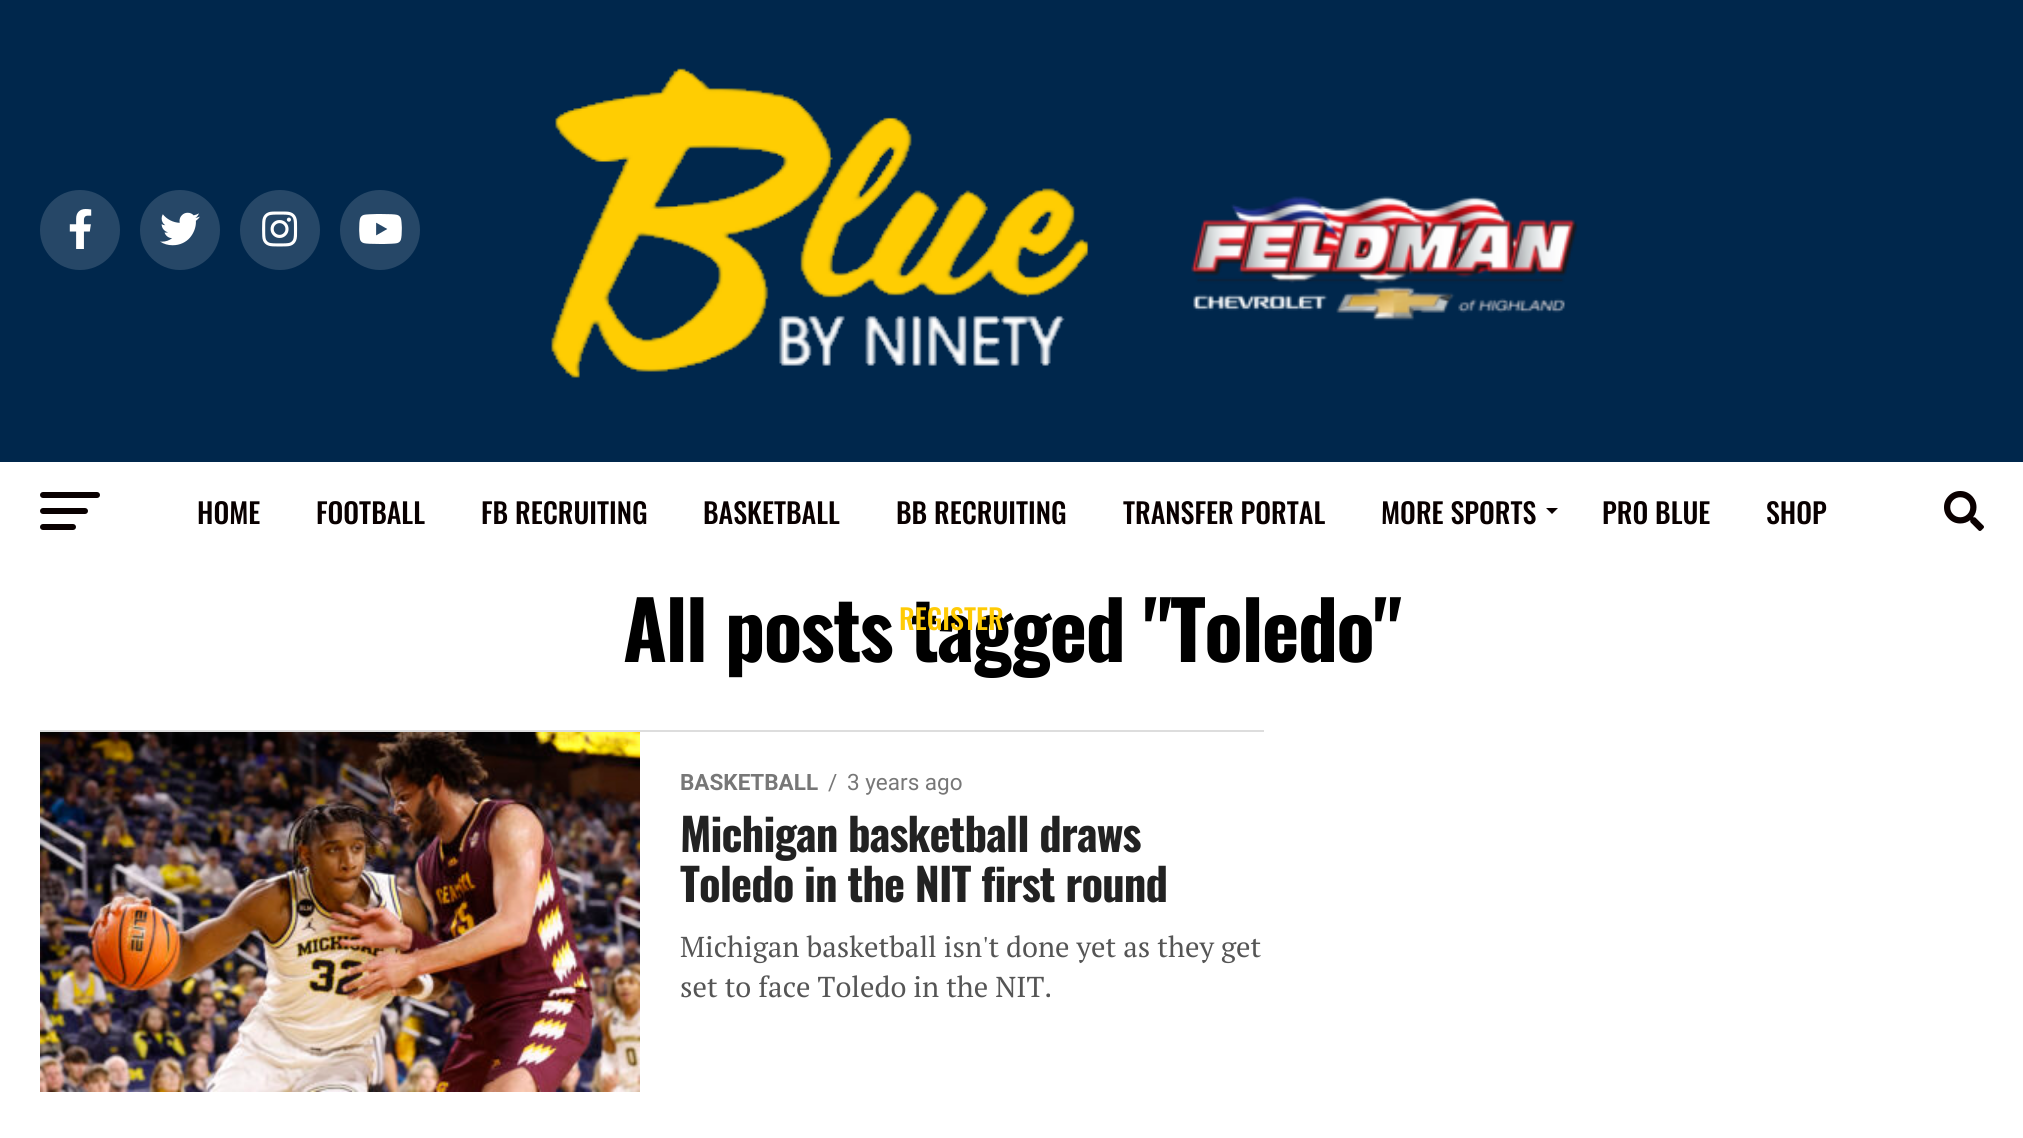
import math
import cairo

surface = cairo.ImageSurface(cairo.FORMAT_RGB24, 2023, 1138)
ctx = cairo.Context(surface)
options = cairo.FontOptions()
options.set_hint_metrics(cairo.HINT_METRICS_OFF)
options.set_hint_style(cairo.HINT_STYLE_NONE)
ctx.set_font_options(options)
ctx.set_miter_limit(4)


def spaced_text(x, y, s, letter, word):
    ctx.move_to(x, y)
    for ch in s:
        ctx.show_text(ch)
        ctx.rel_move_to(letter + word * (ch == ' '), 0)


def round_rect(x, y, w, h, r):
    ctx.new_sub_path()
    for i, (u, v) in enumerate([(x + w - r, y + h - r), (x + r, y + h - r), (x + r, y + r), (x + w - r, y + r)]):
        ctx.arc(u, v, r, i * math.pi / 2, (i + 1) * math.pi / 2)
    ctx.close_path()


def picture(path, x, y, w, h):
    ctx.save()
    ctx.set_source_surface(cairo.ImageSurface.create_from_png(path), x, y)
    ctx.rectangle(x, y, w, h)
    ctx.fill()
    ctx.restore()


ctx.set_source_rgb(1, 1, 1)
ctx.paint()
ctx.set_source_rgb(0, 0.153, 0.298)
ctx.rectangle(0, 0, 2023, 462)
ctx.fill()
ctx.set_source_rgb(0.149, 0.278, 0.404)
ctx.arc(80, 230, 40, 0, 2 * math.pi)
ctx.fill()
picture("img1.png", 69, 209, 23, 40)
ctx.arc(180, 230, 40, 0, 2 * math.pi)
ctx.fill()
picture("img2.png", 160, 212, 40, 34)
ctx.arc(280, 230, 40, 0, 2 * math.pi)
ctx.fill()
picture("img3.png", 262, 211, 36, 36)
ctx.arc(380, 230, 40, 0, 2 * math.pi)
ctx.fill()
picture("img4.png", 359, 214, 43, 30)
picture("img5.png", 551, 68, 1027, 310)
ctx.set_source_rgb(0.039, 0, 0)
round_rect(40, 492, 60, 6, 3)
ctx.fill()
round_rect(40, 508, 48, 6, 3)
ctx.fill()
round_rect(40, 524, 36, 6, 3)
ctx.fill()
ctx.select_font_face("Oswald Medium")
ctx.set_font_size(28)
ctx.move_to(197, 524)
ctx.show_text("HOME")
ctx.move_to(316, 524)
ctx.show_text("FOOTBALL")
ctx.move_to(481, 524)
ctx.show_text("FB RECRUITING")
ctx.move_to(703, 524)
ctx.show_text("BASKETBALL")
ctx.move_to(896, 524)
ctx.show_text("BB RECRUITING")
ctx.move_to(1123, 524)
ctx.show_text("TRANSFER PORTAL")
ctx.move_to(1381, 524)
ctx.show_text("MORE SPORTS")
ctx.new_path()
ctx.move_to(1546, 508)
ctx.line_to(1558, 508)
ctx.line_to(1552, 514)
ctx.close_path()
ctx.fill()
ctx.move_to(1602, 524)
ctx.show_text("PRO BLUE")
ctx.move_to(1766, 524)
ctx.show_text("SHOP")
ctx.select_font_face("Oswald", cairo.FONT_SLANT_NORMAL, cairo.FONT_WEIGHT_BOLD)
ctx.set_font_size(80)
ctx.set_source_rgb(0, 0, 0)
spaced_text(623, 662, "All posts tagged \"Toledo\"", -1.6, 0)
ctx.select_font_face("Oswald Medium")
ctx.set_font_size(28)
ctx.set_source_rgb(1, 0.796, 0.02)
ctx.move_to(899, 630)
ctx.show_text("REGISTER")
picture("img6.png", 1944, 491, 40, 40)
ctx.set_source_rgb(0.867, 0.867, 0.867)
ctx.rectangle(40, 730, 1224, 2)
ctx.fill()
picture("img7.png", 40, 732, 600, 360)
ctx.select_font_face("Roboto", cairo.FONT_SLANT_NORMAL, cairo.FONT_WEIGHT_BOLD)
ctx.set_font_size(22.5)
ctx.set_source_rgb(0.467, 0.467, 0.467)
ctx.move_to(680, 790)
ctx.show_text("BASKETBALL")
ctx.select_font_face("Roboto")
ctx.move_to(828, 790)
ctx.show_text("/")
ctx.move_to(847, 790)
ctx.show_text("3 years ago")
ctx.select_font_face("Oswald", cairo.FONT_SLANT_NORMAL, cairo.FONT_WEIGHT_BOLD)
ctx.set_font_size(44.75)
ctx.set_source_rgb(0.133, 0.133, 0.133)
spaced_text(680, 852, "Michigan basketball draws", -0.9, 0)
spaced_text(680, 902, "Toledo in the NIT first round", -0.9, 0)
ctx.select_font_face("PT Serif")
ctx.set_font_size(28.8)
ctx.set_source_rgb(0.333, 0.333, 0.333)
ctx.move_to(680, 957)
ctx.show_text("Michigan basketball isn't done yet as they get")
ctx.move_to(680, 997)
ctx.show_text("set to face Toledo in the NIT.")
surface.write_to_png("page.png")
